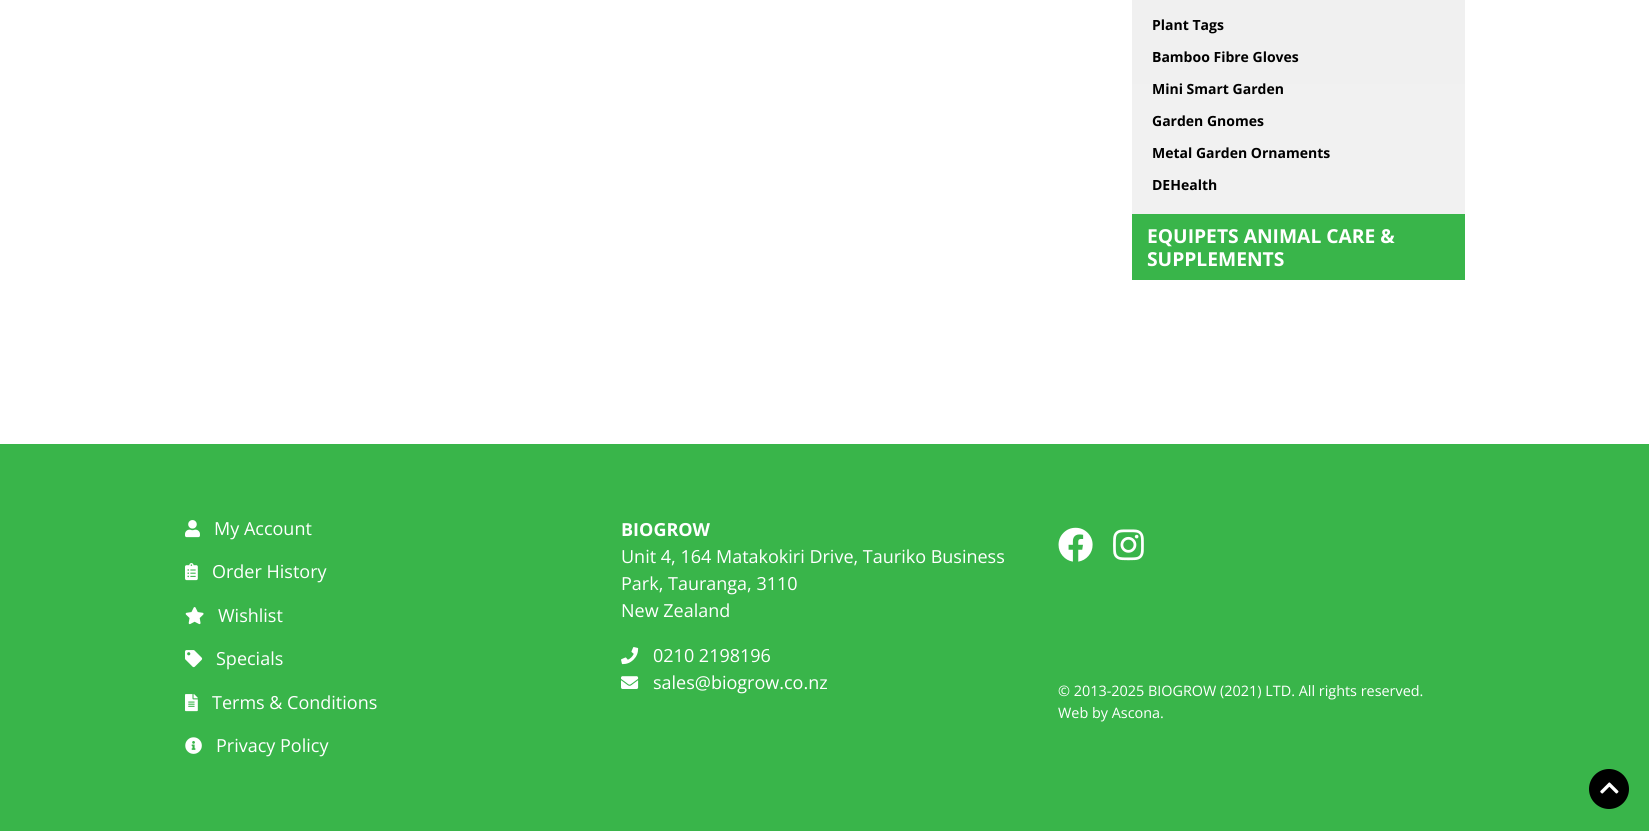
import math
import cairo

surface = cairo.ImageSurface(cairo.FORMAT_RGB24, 1649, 831)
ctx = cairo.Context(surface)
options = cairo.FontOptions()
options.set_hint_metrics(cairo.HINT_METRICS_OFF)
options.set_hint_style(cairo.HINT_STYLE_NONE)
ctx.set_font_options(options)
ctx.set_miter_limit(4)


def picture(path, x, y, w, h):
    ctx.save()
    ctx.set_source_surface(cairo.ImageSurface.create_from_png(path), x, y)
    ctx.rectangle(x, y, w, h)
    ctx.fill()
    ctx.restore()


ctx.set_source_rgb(1, 1, 1)
ctx.paint()
gradient = cairo.LinearGradient(1299, -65, 1299, 214)
gradient.add_color_stop_rgba(0, 0.941, 0.941, 0.941, 1)
gradient.add_color_stop_rgba(1, 0.945, 0.945, 0.945, 1)
ctx.set_source(gradient)
ctx.rectangle(1132, 0, 333, 214)
ctx.fill()
ctx.select_font_face("Open Sans", cairo.FONT_SLANT_NORMAL, cairo.FONT_WEIGHT_BOLD)
ctx.set_font_size(14)
ctx.set_source_rgb(0, 0, 0)
ctx.move_to(1152, 30)
ctx.show_text("Plant Tags")
ctx.move_to(1152, 62)
ctx.show_text("Bamboo Fibre Gloves")
ctx.move_to(1152, 94)
ctx.show_text("Mini Smart Garden")
ctx.move_to(1152, 126)
ctx.show_text("Garden Gnomes")
ctx.move_to(1152, 158)
ctx.show_text("Metal Garden Ornaments")
ctx.move_to(1152, 190)
ctx.show_text("DEHealth")
ctx.set_source_rgb(0.224, 0.71, 0.29)
ctx.rectangle(1132, 214, 333, 66)
ctx.fill()
ctx.set_font_size(19.25)
ctx.set_source_rgb(1, 1, 1)
ctx.move_to(1147, 243)
ctx.show_text("EQUIPETS ANIMAL CARE &")
ctx.move_to(1147, 266)
ctx.show_text("SUPPLEMENTS")
ctx.set_source_rgb(0.224, 0.71, 0.29)
ctx.rectangle(0, 444, 1649, 387)
ctx.fill()
picture("img1.png", 185, 520, 15, 18)
ctx.select_font_face("Open Sans")
ctx.set_font_size(18)
ctx.set_source_rgb(1, 1, 1)
ctx.move_to(214, 535)
ctx.show_text("My Account")
picture("img2.png", 185, 563, 13, 18)
ctx.move_to(212, 578)
ctx.show_text("Order History")
picture("img3.png", 185, 607, 19, 18)
ctx.move_to(218, 622)
ctx.show_text("Wishlist")
picture("img4.png", 185, 650, 18, 18)
ctx.move_to(216, 665)
ctx.show_text("Specials")
picture("img5.png", 185, 694, 13, 18)
ctx.move_to(212, 709)
ctx.show_text("Terms & Conditions")
picture("img6.png", 185, 737, 17, 17)
ctx.move_to(216, 752)
ctx.show_text("Privacy Policy")
ctx.select_font_face("Open Sans", cairo.FONT_SLANT_NORMAL, cairo.FONT_WEIGHT_BOLD)
ctx.move_to(621, 536)
ctx.show_text("BIOGROW")
ctx.select_font_face("Open Sans")
ctx.move_to(621, 563)
ctx.show_text("Unit 4, 164 Matakokiri Drive, Tauriko Business")
ctx.move_to(621, 590)
ctx.show_text("Park, Tauranga, 3110")
ctx.move_to(621, 617)
ctx.show_text("New Zealand")
picture("img7.png", 621, 647, 18, 18)
ctx.move_to(653, 662)
ctx.show_text("0210 2198196")
picture("img8.png", 621, 676, 18, 13)
ctx.move_to(653, 689)
ctx.show_text("sales@biogrow.co.nz")
picture("img9.png", 1058, 527, 35, 35)
picture("img10.png", 1113, 529, 31, 32)
ctx.set_font_size(14.4)
ctx.move_to(1058, 696)
ctx.show_text("© 2013-2025 BIOGROW (2021) LTD. All rights reserved.")
ctx.move_to(1058, 718)
ctx.show_text("Web by Ascona.")
ctx.set_source_rgb(0, 0, 0)
ctx.new_path()
ctx.arc(1609, 789, 20, 0, 2 * math.pi)
ctx.fill()
picture("img11.png", 1600, 782, 19, 12)
surface.write_to_png("page.png")
